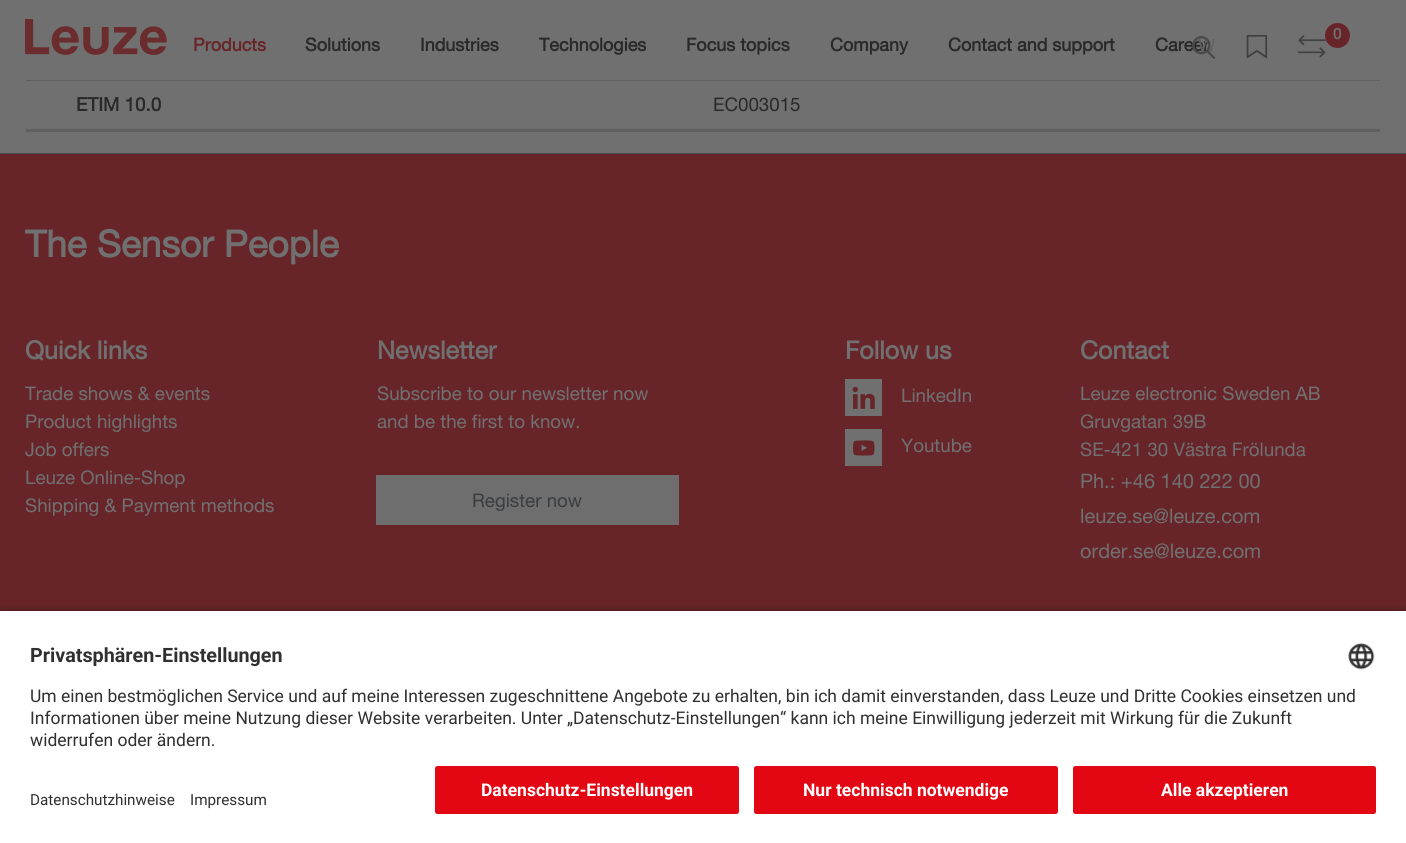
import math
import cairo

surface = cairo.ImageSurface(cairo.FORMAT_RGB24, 1406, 843)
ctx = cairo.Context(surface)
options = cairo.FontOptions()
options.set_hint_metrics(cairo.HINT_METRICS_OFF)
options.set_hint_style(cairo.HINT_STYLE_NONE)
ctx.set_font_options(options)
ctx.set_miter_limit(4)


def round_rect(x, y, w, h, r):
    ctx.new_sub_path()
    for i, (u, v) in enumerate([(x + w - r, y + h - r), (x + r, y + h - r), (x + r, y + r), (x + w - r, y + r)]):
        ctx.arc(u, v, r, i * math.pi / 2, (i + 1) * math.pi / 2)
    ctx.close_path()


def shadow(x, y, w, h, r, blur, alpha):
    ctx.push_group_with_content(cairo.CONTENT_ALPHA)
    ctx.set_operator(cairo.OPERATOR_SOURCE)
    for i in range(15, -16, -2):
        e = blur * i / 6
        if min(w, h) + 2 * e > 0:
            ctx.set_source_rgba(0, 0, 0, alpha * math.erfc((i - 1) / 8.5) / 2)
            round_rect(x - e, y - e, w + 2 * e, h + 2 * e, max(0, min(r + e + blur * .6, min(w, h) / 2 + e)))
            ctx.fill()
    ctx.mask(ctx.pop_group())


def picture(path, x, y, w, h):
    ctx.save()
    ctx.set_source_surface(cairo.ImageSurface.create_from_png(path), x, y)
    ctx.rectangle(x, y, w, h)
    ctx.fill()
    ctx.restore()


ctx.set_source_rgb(0.439, 0.439, 0.439)
ctx.paint()
picture("img1.png", 25, 19, 142, 36)
ctx.select_font_face("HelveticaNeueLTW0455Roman", cairo.FONT_SLANT_NORMAL, cairo.FONT_WEIGHT_BOLD)
ctx.set_font_size(18)
ctx.set_source_rgb(0.408, 0.145, 0.161)
ctx.move_to(193, 51)
ctx.show_text("Products")
ctx.set_source_rgb(0.161, 0.161, 0.161)
ctx.move_to(305, 51)
ctx.show_text("Solutions")
ctx.move_to(420, 51)
ctx.show_text("Industries")
ctx.move_to(539, 51)
ctx.show_text("Technologies")
ctx.move_to(686, 51)
ctx.show_text("Focus topics")
ctx.move_to(830, 51)
ctx.show_text("Company")
ctx.move_to(948, 51)
ctx.show_text("Contact and support")
ctx.move_to(1155, 51)
ctx.show_text("Career")
ctx.save()
ctx.rectangle(1198, 33, 16, 22)
ctx.clip()
ctx.select_font_face("HelveticaNeueLTW0455Roman")
ctx.set_font_size(18.75)
ctx.set_source_rgb(0.38, 0.38, 0.38)
ctx.move_to(1198, 52)
ctx.show_text("W")
ctx.restore()
picture("img2.png", 1192, 36, 24, 23)
picture("img3.png", 1246, 35, 22, 24)
picture("img4.png", 1298, 35, 28, 23)
ctx.set_source_rgb(0.408, 0.145, 0.161)
ctx.arc(1337.5, 35.5, 12.5, 0, 2 * math.pi)
ctx.fill()
ctx.set_font_size(15)
ctx.set_source_rgb(0.439, 0.439, 0.439)
ctx.move_to(1333, 39)
ctx.show_text("0")
ctx.set_source_rgb(0.373, 0.373, 0.373)
ctx.rectangle(26, 80, 1354, 1)
ctx.fill()
ctx.rectangle(26, 129, 1354, 3)
ctx.fill()
ctx.set_font_size(18.75)
ctx.set_source_rgb(0.161, 0.161, 0.161)
ctx.move_to(76, 111)
ctx.show_text("ETIM 10.0")
ctx.select_font_face("HelveticaNeueLTW0455Roman")
ctx.move_to(713, 111)
ctx.show_text("EC003015")
ctx.set_source_rgb(0.408, 0.145, 0.161)
ctx.rectangle(0, 154, 1406, 457)
ctx.fill()
ctx.set_source_rgb(0.282, 0.294, 0.31)
ctx.rectangle(0, 153, 1406, 1)
ctx.fill()
ctx.select_font_face("HelveticaNeueLTW0455Roman", cairo.FONT_SLANT_NORMAL, cairo.FONT_WEIGHT_BOLD)
ctx.set_font_size(37)
ctx.set_source_rgb(0.439, 0.439, 0.439)
ctx.move_to(25, 257)
ctx.show_text("The Sensor People")
ctx.set_font_size(25)
ctx.move_to(25, 359)
ctx.show_text("Quick links")
ctx.select_font_face("HelveticaNeueLTW0455Roman")
ctx.set_font_size(18.75)
ctx.move_to(25, 400)
ctx.show_text("Trade shows & events")
ctx.move_to(25, 428)
ctx.show_text("Product highlights")
ctx.move_to(25, 456)
ctx.show_text("Job offers")
ctx.move_to(25, 484)
ctx.show_text("Leuze Online-Shop")
ctx.move_to(25, 512)
ctx.show_text("Shipping & Payment methods")
ctx.select_font_face("HelveticaNeueLTW0455Roman", cairo.FONT_SLANT_NORMAL, cairo.FONT_WEIGHT_BOLD)
ctx.set_font_size(25)
ctx.move_to(377, 359)
ctx.show_text("Newsletter")
ctx.select_font_face("HelveticaNeueLTW0455Roman")
ctx.set_font_size(18.75)
ctx.move_to(377, 400)
ctx.show_text("Subscribe to our newsletter now")
ctx.move_to(377, 428)
ctx.show_text("and be the first to know.")
ctx.set_source_rgb(0.431, 0.431, 0.431)
ctx.rectangle(376, 475, 303, 50)
ctx.fill()
ctx.set_source_rgb(0.227, 0.239, 0.247)
ctx.move_to(472, 507)
ctx.show_text("Register now")
ctx.select_font_face("HelveticaNeueLTW0455Roman", cairo.FONT_SLANT_NORMAL, cairo.FONT_WEIGHT_BOLD)
ctx.set_font_size(25)
ctx.set_source_rgb(0.439, 0.439, 0.439)
ctx.move_to(845, 359)
ctx.show_text("Follow us")
picture("img5.png", 845, 379, 37, 37)
ctx.select_font_face("HelveticaNeueLTW0455Roman")
ctx.set_font_size(18.75)
ctx.move_to(901, 402)
ctx.show_text("LinkedIn")
picture("img6.png", 845, 429, 37, 37)
ctx.move_to(901, 452)
ctx.show_text("Youtube")
ctx.select_font_face("HelveticaNeueLTW0455Roman", cairo.FONT_SLANT_NORMAL, cairo.FONT_WEIGHT_BOLD)
ctx.set_font_size(25)
ctx.move_to(1080, 359)
ctx.show_text("Contact")
ctx.select_font_face("HelveticaNeueLTW0455Roman")
ctx.set_font_size(18.75)
ctx.move_to(1080, 400)
ctx.show_text("Leuze electronic Sweden AB")
ctx.move_to(1080, 428)
ctx.show_text("Gruvgatan 39B")
ctx.move_to(1080, 456)
ctx.show_text("SE-421 30 Västra Frölunda")
ctx.set_font_size(20)
ctx.move_to(1080, 488)
ctx.show_text("Ph.: +46 140 222 00")
ctx.move_to(1080, 523)
ctx.show_text("leuze.se@leuze.com")
ctx.move_to(1080, 558)
ctx.show_text("order.se@leuze.com")
ctx.set_source_rgb(0, 0, 0)
shadow(0, 614, 1406, 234, 0, 4.5, 0.8)
ctx.set_source_rgb(1, 1, 1)
ctx.rectangle(0, 611, 1406, 232)
ctx.fill()
ctx.select_font_face("Roboto", cairo.FONT_SLANT_NORMAL, cairo.FONT_WEIGHT_BOLD)
ctx.set_font_size(19.75)
ctx.set_source_rgb(0.188, 0.188, 0.188)
ctx.move_to(30, 662)
ctx.show_text("Privatsphären-Einstellungen")
picture("img7.png", 1348, 643, 27, 27)
ctx.select_font_face("Roboto")
ctx.set_font_size(17.5)
ctx.move_to(30, 702)
ctx.show_text("Um einen bestmöglichen Service und auf meine Interessen zugeschnittene Angebote zu erhalten, bin ich damit einverstanden, dass Leuze und Dritte Cookies einsetzen und")
ctx.move_to(30, 724)
ctx.show_text("Informationen über meine Nutzung dieser Website verarbeiten. Unter „Datenschutz-Einstellungen“ kann ich meine Einwilligung jederzeit mit Wirkung für die Zukunft")
ctx.move_to(30, 746)
ctx.show_text("widerrufen oder ändern.")
ctx.set_font_size(15.25)
ctx.move_to(30, 805)
ctx.show_text("Datenschutzhinweise")
ctx.move_to(190, 805)
ctx.show_text("Impressum")
ctx.set_source_rgb(0.89, 0.024, 0.075)
round_rect(435, 766, 304, 48, 2.5)
ctx.fill()
ctx.select_font_face("Roboto", cairo.FONT_SLANT_NORMAL, cairo.FONT_WEIGHT_BOLD)
ctx.set_font_size(17.5)
ctx.set_source_rgb(1, 1, 1)
ctx.move_to(481, 796)
ctx.show_text("Datenschutz-Einstellungen")
ctx.set_source_rgb(0.89, 0.024, 0.075)
round_rect(754, 766, 304, 48, 2.5)
ctx.fill()
ctx.set_source_rgb(1, 1, 1)
ctx.move_to(803, 796)
ctx.show_text("Nur technisch notwendige")
ctx.set_source_rgb(0.89, 0.024, 0.075)
round_rect(1073, 766, 303, 48, 2.5)
ctx.fill()
ctx.set_source_rgb(1, 1, 1)
ctx.move_to(1161, 796)
ctx.show_text("Alle akzeptieren")
surface.write_to_png("page.png")
